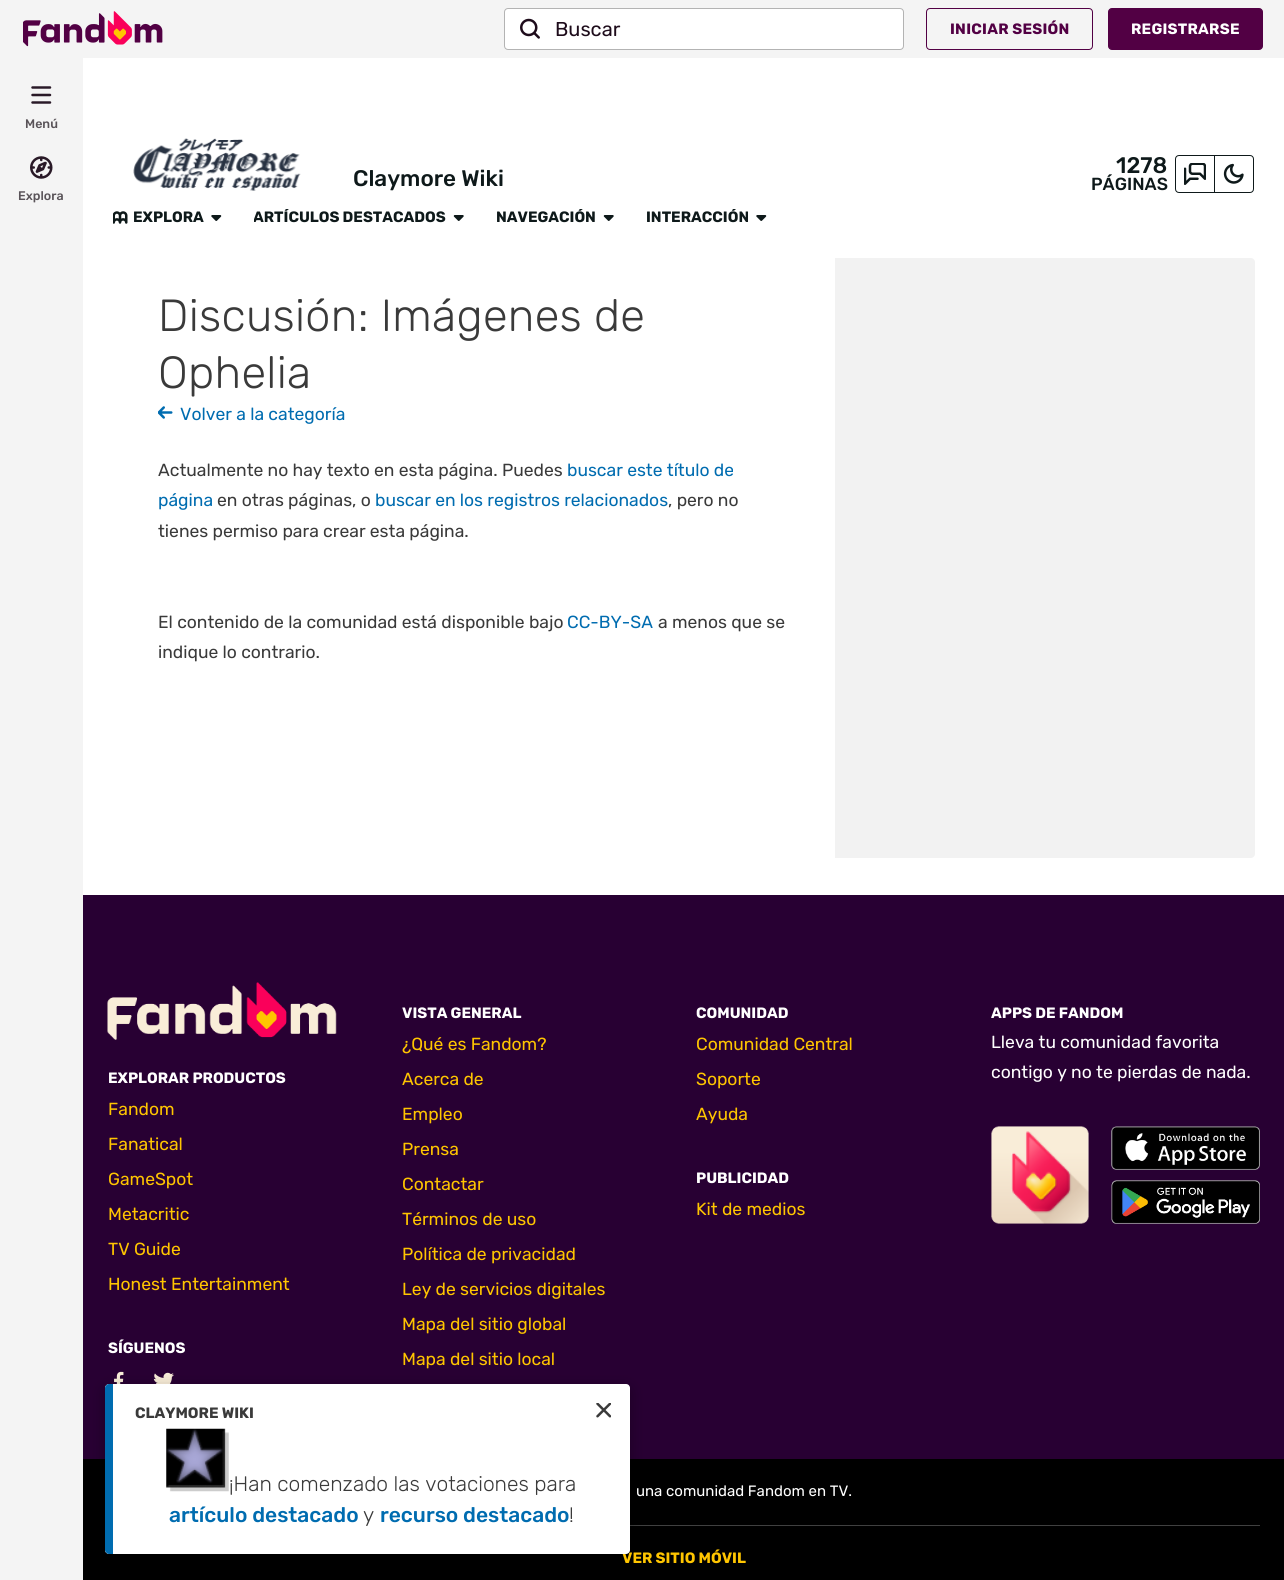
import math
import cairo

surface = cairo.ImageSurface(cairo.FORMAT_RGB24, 1284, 1580)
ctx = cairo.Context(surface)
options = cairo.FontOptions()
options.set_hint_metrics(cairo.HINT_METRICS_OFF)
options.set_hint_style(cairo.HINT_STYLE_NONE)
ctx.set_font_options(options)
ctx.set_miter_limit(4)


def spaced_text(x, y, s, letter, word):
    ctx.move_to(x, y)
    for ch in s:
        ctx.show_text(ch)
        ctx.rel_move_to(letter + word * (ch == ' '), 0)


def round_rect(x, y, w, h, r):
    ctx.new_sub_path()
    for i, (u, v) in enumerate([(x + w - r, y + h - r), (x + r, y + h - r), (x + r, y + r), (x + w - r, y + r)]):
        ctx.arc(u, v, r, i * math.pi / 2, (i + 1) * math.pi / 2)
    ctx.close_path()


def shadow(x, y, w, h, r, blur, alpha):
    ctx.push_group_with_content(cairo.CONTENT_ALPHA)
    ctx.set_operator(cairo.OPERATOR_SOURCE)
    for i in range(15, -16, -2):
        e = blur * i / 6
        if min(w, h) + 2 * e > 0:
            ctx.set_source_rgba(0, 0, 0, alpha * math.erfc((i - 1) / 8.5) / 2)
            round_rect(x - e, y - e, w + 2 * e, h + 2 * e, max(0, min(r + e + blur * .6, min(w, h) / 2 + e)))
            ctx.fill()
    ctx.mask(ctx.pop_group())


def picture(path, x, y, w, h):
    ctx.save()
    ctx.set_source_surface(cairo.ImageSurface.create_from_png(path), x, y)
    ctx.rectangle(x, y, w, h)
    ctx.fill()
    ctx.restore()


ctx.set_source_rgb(1, 1, 1)
ctx.paint()
ctx.set_source_rgb(0.957, 0.957, 0.957)
ctx.rectangle(0, 0, 1284, 58)
ctx.fill()
picture("img1.png", 23, 11, 140, 36)
ctx.set_source_rgb(1, 1, 1)
round_rect(504.5, 8.5, 399, 41, 3.5)
ctx.fill_preserve()
ctx.set_source_rgb(0.702, 0.702, 0.702)
ctx.set_line_width(1)
ctx.stroke()
picture("img2.png", 520, 18, 20, 21)
ctx.select_font_face("Rubik")
ctx.set_font_size(20)
ctx.set_source_rgb(0.118, 0.047, 0.106)
ctx.move_to(555, 36)
ctx.show_text("Buscar")
round_rect(926.5, 8.5, 166, 41, 3.5)
ctx.set_source_rgb(0.322, 0, 0.267)
ctx.stroke()
ctx.select_font_face("Rubik", cairo.FONT_SLANT_NORMAL, cairo.FONT_WEIGHT_BOLD)
ctx.set_font_size(15)
spaced_text(950, 34, "INICIAR SESIÓN", 0.25, 0)
round_rect(1108.5, 8.5, 154, 41, 3.5)
ctx.fill_preserve()
ctx.stroke()
ctx.set_source_rgb(1, 1, 1)
spaced_text(1131, 34, "REGISTRARSE", 0.25, 0)
ctx.set_source_rgb(0.157, 0, 0.2)
ctx.rectangle(83, 895, 1201, 564)
ctx.fill()
picture("img16.png", 114, 1371, 10, 13)
picture("img17.png", 153, 1372, 21, 12)
ctx.set_source_rgb(0, 0, 0)
ctx.rectangle(83, 1459, 1201, 121)
ctx.fill()
ctx.set_source_rgb(0.251, 0.251, 0.251)
ctx.rectangle(630, 1525, 630, 1)
ctx.fill()
ctx.set_source_rgb(0, 0, 0)
shadow(105, 1388, 525, 170, 4, 7.5, 0.3)
ctx.set_source_rgb(0.957, 0.957, 0.957)
ctx.rectangle(0, 58, 83, 1522)
ctx.fill()
picture("img3.png", 31, 86, 21, 18)
ctx.select_font_face("Rubik Medium")
ctx.set_font_size(12.5)
ctx.set_source_rgb(0.349, 0.325, 0.345)
ctx.move_to(25, 128)
ctx.show_text("Menú")
picture("img4.png", 30, 156, 23, 23)
ctx.move_to(18, 200)
ctx.show_text("Explora")
picture("img5.png", 133, 138, 168, 53)
ctx.set_font_size(22.5)
ctx.set_source_rgb(0.055, 0.098, 0.102)
ctx.move_to(353, 186)
ctx.show_text("Claymore Wiki")
ctx.move_to(1116, 173)
ctx.show_text("1278")
ctx.set_font_size(17.5)
ctx.move_to(1091, 190)
ctx.show_text("PÁGINAS")
ctx.new_path()
ctx.move_to(1179, 155.5)
ctx.line_to(1214.5, 155.5)
ctx.line_to(1214.5, 192.5)
ctx.line_to(1179, 192.5)
ctx.curve_to(1177, 192.5, 1175.5, 191, 1175.5, 189)
ctx.line_to(1175.5, 159)
ctx.curve_to(1175.5, 157, 1177, 155.5, 1179, 155.5)
ctx.close_path()
ctx.stroke()
picture("img6.png", 1184, 163, 22, 22)
ctx.new_path()
ctx.move_to(1214.5, 155.5)
ctx.line_to(1250, 155.5)
ctx.curve_to(1252, 155.5, 1253.5, 157, 1253.5, 159)
ctx.line_to(1253.5, 189)
ctx.curve_to(1253.5, 191, 1252, 192.5, 1250, 192.5)
ctx.line_to(1214.5, 192.5)
ctx.close_path()
ctx.stroke()
picture("img7.png", 1223, 163, 21, 21)
picture("img8.png", 113, 211, 15, 13)
ctx.select_font_face("Rubik", cairo.FONT_SLANT_NORMAL, cairo.FONT_WEIGHT_BOLD)
ctx.set_font_size(15)
ctx.move_to(133, 222)
ctx.show_text("EXPLORA")
picture("img9.png", 211, 215, 11, 6)
ctx.save()
ctx.rectangle(254, 209, 192, 19)
ctx.clip()
ctx.move_to(253, 222)
ctx.show_text("ARTÍCULOS DESTACADOS")
ctx.restore()
picture("img10.png", 453, 215, 11, 6)
ctx.save()
ctx.rectangle(496, 209, 100, 19)
ctx.clip()
ctx.move_to(496, 222)
ctx.show_text("NAVEGACIÓN")
ctx.restore()
picture("img10.png", 603, 215, 11, 6)
ctx.save()
ctx.rectangle(646, 209, 103, 19)
ctx.clip()
ctx.move_to(646, 222)
ctx.show_text("INTERACCIÓN")
ctx.restore()
picture("img9.png", 756, 215, 11, 6)
ctx.select_font_face("Rubik Light")
ctx.set_font_size(45)
ctx.set_source_rgb(0.227, 0.227, 0.227)
spaced_text(158, 331, "Discusión: Imágenes de", 0.3, 0)
spaced_text(158, 388, "Ophelia", 0.3, 0)
picture("img11.png", 158, 406, 15, 13)
ctx.select_font_face("Rubik")
ctx.set_font_size(17.5)
ctx.set_source_rgb(0, 0.424, 0.69)
ctx.move_to(180, 420)
ctx.show_text("Volver a la categoría")
ctx.set_source_rgb(0.227, 0.227, 0.227)
ctx.move_to(158, 476)
ctx.show_text("Actualmente no hay texto en esta página. Puedes")
ctx.set_source_rgb(0, 0.424, 0.69)
ctx.move_to(567, 476)
ctx.show_text("buscar este título de")
ctx.move_to(158, 506)
ctx.show_text("página")
ctx.set_source_rgb(0.227, 0.227, 0.227)
ctx.move_to(217, 506)
ctx.show_text("en otras páginas, o")
ctx.set_source_rgb(0, 0.424, 0.69)
ctx.move_to(375, 506)
ctx.show_text("buscar en los registros relacionados")
ctx.set_source_rgb(0.227, 0.227, 0.227)
ctx.move_to(668, 506)
ctx.show_text(", pero no")
ctx.move_to(158, 537)
ctx.show_text("tienes permiso para crear esta página.")
ctx.move_to(158, 628)
ctx.show_text("El contenido de la comunidad está disponible bajo")
ctx.set_source_rgb(0, 0.424, 0.69)
ctx.move_to(567, 628)
ctx.show_text("CC-BY-SA")
ctx.set_source_rgb(0.227, 0.227, 0.227)
ctx.move_to(658, 628)
ctx.show_text("a menos que se")
ctx.move_to(158, 658)
ctx.show_text("indique lo contrario.")
ctx.set_source_rgb(0.949, 0.949, 0.949)
ctx.new_path()
ctx.move_to(835, 258)
ctx.line_to(1251, 258)
ctx.curve_to(1253, 258, 1255, 260, 1255, 262)
ctx.line_to(1255, 854)
ctx.curve_to(1255, 856, 1253, 858, 1251, 858)
ctx.line_to(835, 858)
ctx.close_path()
ctx.fill()
ctx.select_font_face("Rubik", cairo.FONT_SLANT_NORMAL, cairo.FONT_WEIGHT_BOLD)
ctx.set_font_size(15)
ctx.set_source_rgb(1, 1, 1)
ctx.move_to(402, 1018)
ctx.show_text("VISTA GENERAL")
ctx.select_font_face("Rubik")
ctx.set_font_size(17.5)
ctx.set_source_rgb(1, 0.773, 0)
ctx.move_to(402, 1050)
ctx.show_text("¿Qué es Fandom?")
ctx.move_to(402, 1085)
ctx.show_text("Acerca de")
ctx.move_to(402, 1120)
ctx.show_text("Empleo")
ctx.move_to(402, 1155)
ctx.show_text("Prensa")
ctx.move_to(402, 1190)
ctx.show_text("Contactar")
ctx.move_to(402, 1225)
ctx.show_text("Términos de uso")
ctx.move_to(402, 1260)
ctx.show_text("Política de privacidad")
ctx.move_to(402, 1295)
ctx.show_text("Ley de servicios digitales")
ctx.move_to(402, 1330)
ctx.show_text("Mapa del sitio global")
ctx.move_to(402, 1365)
ctx.show_text("Mapa del sitio local")
ctx.select_font_face("Rubik", cairo.FONT_SLANT_NORMAL, cairo.FONT_WEIGHT_BOLD)
ctx.set_font_size(15)
ctx.set_source_rgb(1, 1, 1)
ctx.move_to(696, 1018)
ctx.show_text("COMUNIDAD")
ctx.select_font_face("Rubik")
ctx.set_font_size(17.5)
ctx.set_source_rgb(1, 0.773, 0)
ctx.move_to(696, 1050)
ctx.show_text("Comunidad Central")
ctx.move_to(696, 1085)
ctx.show_text("Soporte")
ctx.move_to(696, 1120)
ctx.show_text("Ayuda")
ctx.select_font_face("Rubik", cairo.FONT_SLANT_NORMAL, cairo.FONT_WEIGHT_BOLD)
ctx.set_font_size(15)
ctx.set_source_rgb(1, 1, 1)
ctx.move_to(696, 1183)
ctx.show_text("PUBLICIDAD")
ctx.select_font_face("Rubik")
ctx.set_font_size(17.5)
ctx.set_source_rgb(1, 0.773, 0)
ctx.move_to(696, 1215)
ctx.show_text("Kit de medios")
ctx.select_font_face("Rubik", cairo.FONT_SLANT_NORMAL, cairo.FONT_WEIGHT_BOLD)
ctx.set_font_size(15)
ctx.set_source_rgb(1, 1, 1)
ctx.move_to(991, 1018)
ctx.show_text("APPS DE FANDOM")
ctx.select_font_face("Rubik")
ctx.set_font_size(17.5)
ctx.move_to(991, 1048)
ctx.show_text("Lleva tu comunidad favorita")
ctx.move_to(991, 1078)
ctx.show_text("contigo y no te pierdas de nada.")
picture("img12.png", 991, 1126, 98, 98)
picture("img13.png", 1111, 1126, 149, 44)
picture("img14.png", 1111, 1180, 149, 44)
picture("img15.png", 107, 982, 230, 58)
ctx.select_font_face("Rubik", cairo.FONT_SLANT_NORMAL, cairo.FONT_WEIGHT_BOLD)
ctx.set_font_size(15)
ctx.move_to(108, 1083)
ctx.show_text("EXPLORAR PRODUCTOS")
ctx.select_font_face("Rubik")
ctx.set_font_size(17.5)
ctx.set_source_rgb(1, 0.773, 0)
ctx.move_to(108, 1115)
ctx.show_text("Fandom")
ctx.move_to(108, 1150)
ctx.show_text("Fanatical")
ctx.move_to(108, 1185)
ctx.show_text("GameSpot")
ctx.move_to(108, 1220)
ctx.show_text("Metacritic")
ctx.move_to(108, 1255)
ctx.show_text("TV Guide")
ctx.move_to(108, 1290)
ctx.show_text("Honest Entertainment")
ctx.select_font_face("Rubik", cairo.FONT_SLANT_NORMAL, cairo.FONT_WEIGHT_BOLD)
ctx.set_font_size(15)
ctx.set_source_rgb(1, 1, 1)
ctx.move_to(108, 1353)
ctx.show_text("SÍGUENOS")
ctx.select_font_face("Rubik")
ctx.move_to(636, 1496)
ctx.show_text("una comunidad Fandom en TV.")
ctx.select_font_face("Rubik", cairo.FONT_SLANT_NORMAL, cairo.FONT_WEIGHT_BOLD)
ctx.set_source_rgb(1, 0.773, 0)
ctx.move_to(622, 1563)
ctx.show_text("VER SITIO MÓVIL")
ctx.set_source_rgb(1, 1, 1)
round_rect(105, 1384, 525, 170, 4)
ctx.fill()
ctx.set_source_rgb(0, 0.424, 0.69)
ctx.new_path()
ctx.move_to(109, 1384)
ctx.line_to(113, 1384)
ctx.line_to(113, 1554)
ctx.line_to(109, 1554)
ctx.curve_to(107, 1554, 105, 1552, 105, 1550)
ctx.line_to(105, 1388)
ctx.curve_to(105, 1386, 107, 1384, 109, 1384)
ctx.close_path()
ctx.fill()
ctx.set_source_rgb(0.227, 0.227, 0.227)
ctx.move_to(135, 1418)
ctx.show_text("CLAYMORE WIKI")
picture("img18.png", 596, 1403, 15, 15)
picture("img19.png", 166, 1428, 63, 64)
ctx.select_font_face("Rubik Light")
ctx.set_font_size(21)
ctx.move_to(229, 1491)
ctx.show_text("¡Han comenzado las votaciones para")
ctx.select_font_face("Rubik Medium")
ctx.set_source_rgb(0, 0.424, 0.69)
ctx.move_to(169, 1522)
ctx.show_text("artículo destacado")
ctx.select_font_face("Rubik Light")
ctx.set_source_rgb(0.227, 0.227, 0.227)
ctx.move_to(363, 1522)
ctx.show_text("y")
ctx.select_font_face("Rubik Medium")
ctx.set_source_rgb(0, 0.424, 0.69)
ctx.move_to(380, 1522)
ctx.show_text("recurso destacado")
ctx.select_font_face("Rubik Light")
ctx.set_source_rgb(0.227, 0.227, 0.227)
ctx.move_to(569, 1522)
ctx.show_text("!")
surface.write_to_png("page.png")
